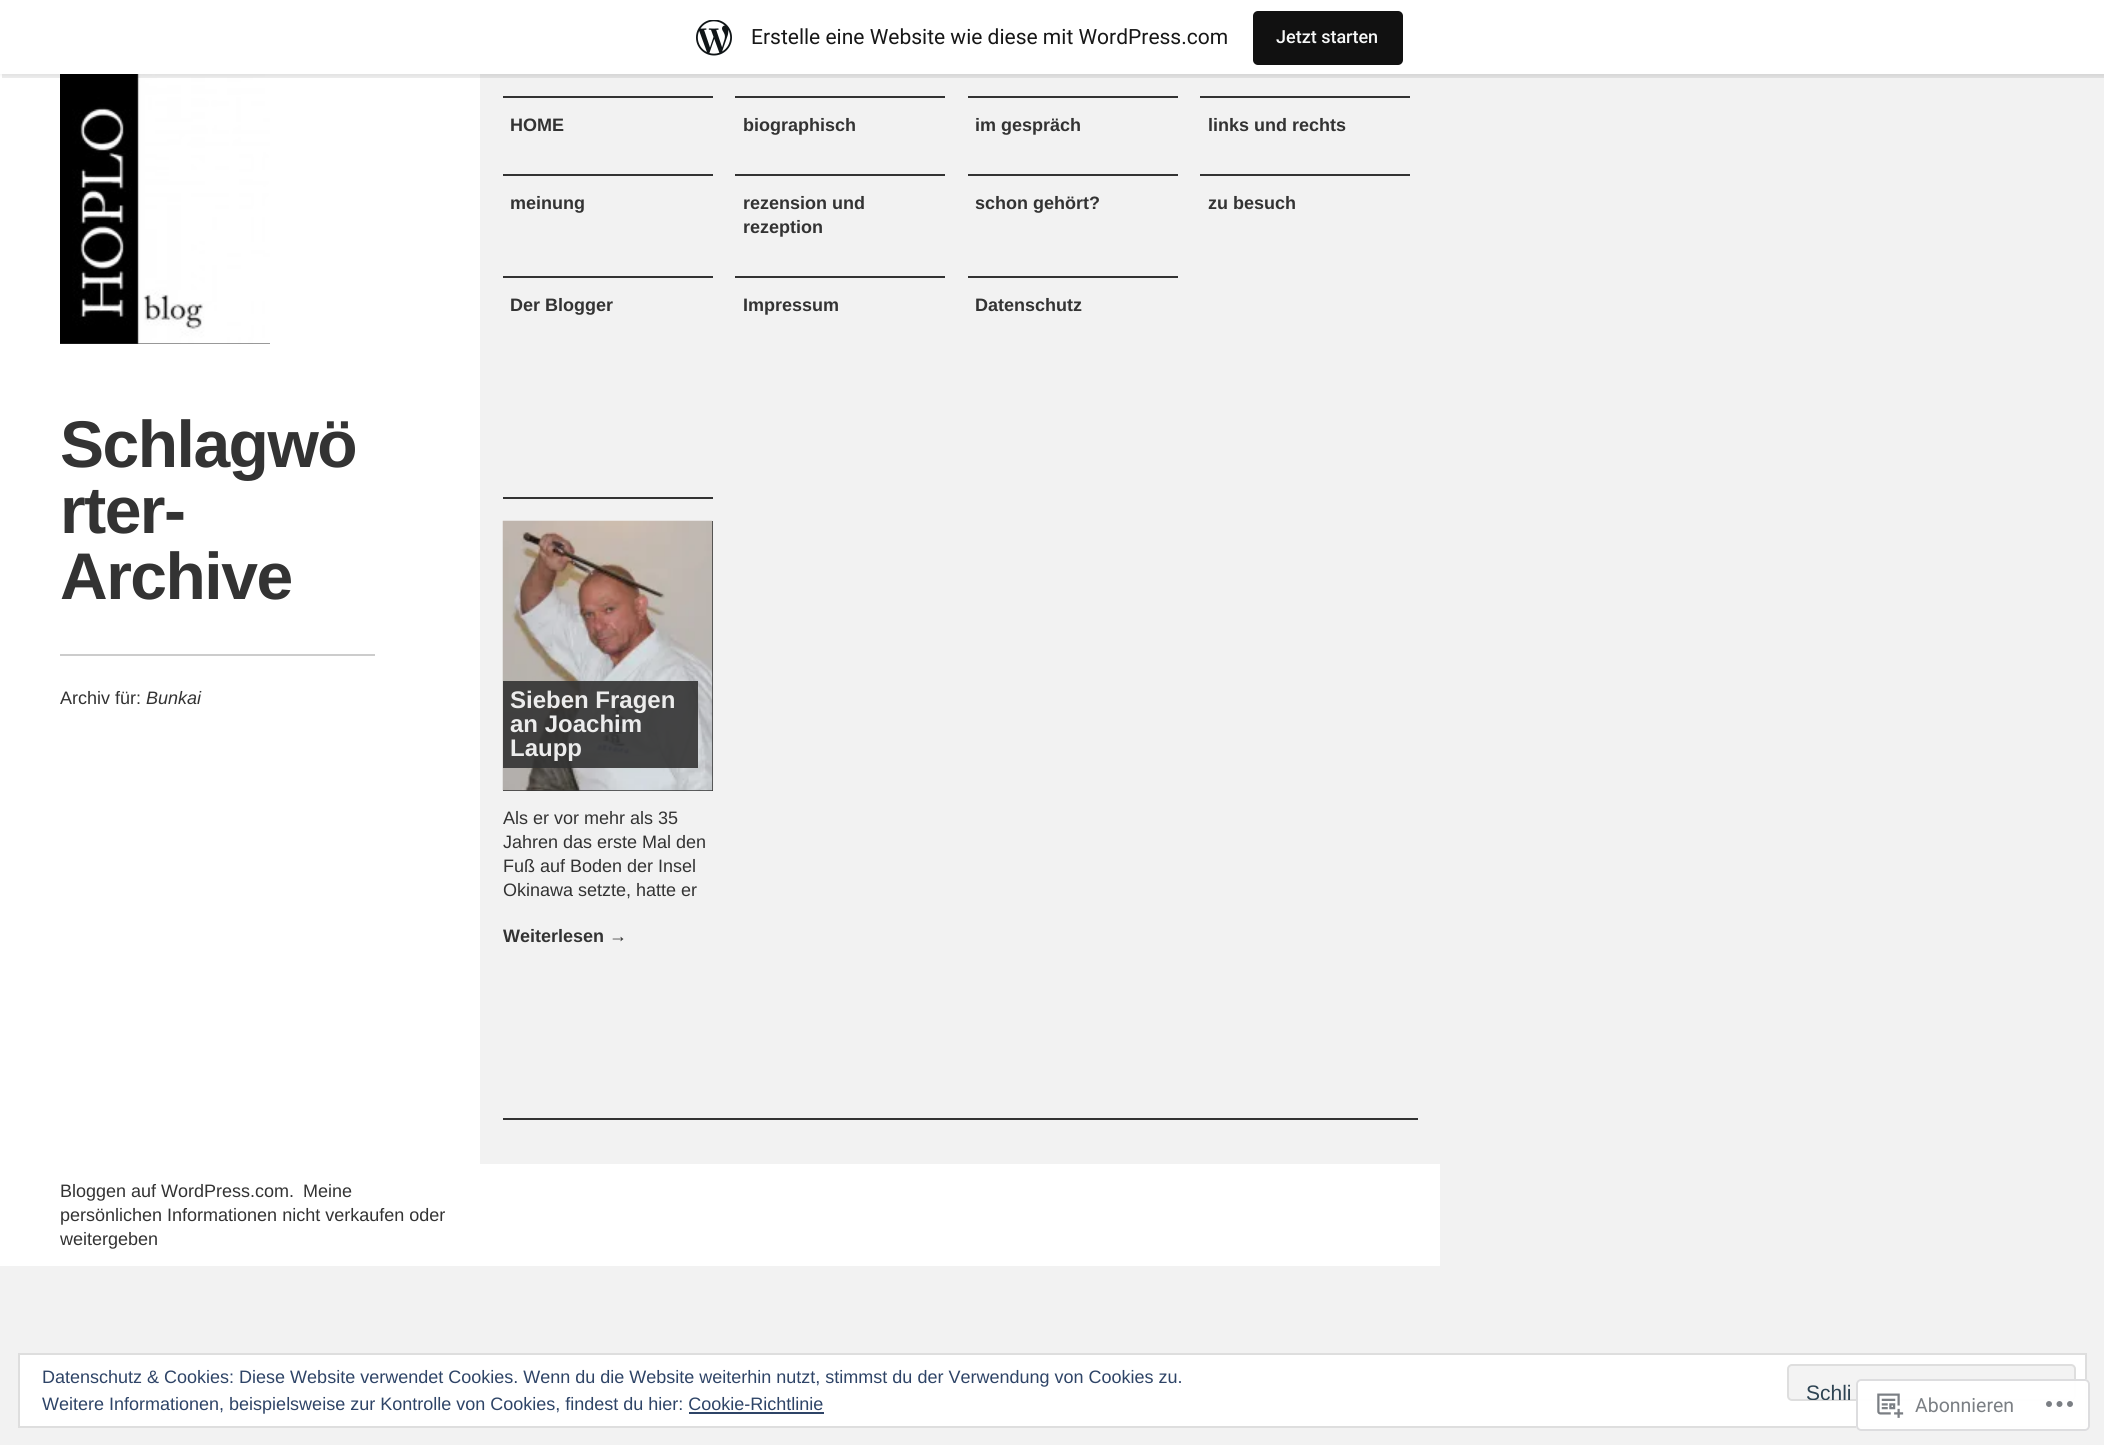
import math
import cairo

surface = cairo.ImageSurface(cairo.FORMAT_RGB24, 2104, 1445)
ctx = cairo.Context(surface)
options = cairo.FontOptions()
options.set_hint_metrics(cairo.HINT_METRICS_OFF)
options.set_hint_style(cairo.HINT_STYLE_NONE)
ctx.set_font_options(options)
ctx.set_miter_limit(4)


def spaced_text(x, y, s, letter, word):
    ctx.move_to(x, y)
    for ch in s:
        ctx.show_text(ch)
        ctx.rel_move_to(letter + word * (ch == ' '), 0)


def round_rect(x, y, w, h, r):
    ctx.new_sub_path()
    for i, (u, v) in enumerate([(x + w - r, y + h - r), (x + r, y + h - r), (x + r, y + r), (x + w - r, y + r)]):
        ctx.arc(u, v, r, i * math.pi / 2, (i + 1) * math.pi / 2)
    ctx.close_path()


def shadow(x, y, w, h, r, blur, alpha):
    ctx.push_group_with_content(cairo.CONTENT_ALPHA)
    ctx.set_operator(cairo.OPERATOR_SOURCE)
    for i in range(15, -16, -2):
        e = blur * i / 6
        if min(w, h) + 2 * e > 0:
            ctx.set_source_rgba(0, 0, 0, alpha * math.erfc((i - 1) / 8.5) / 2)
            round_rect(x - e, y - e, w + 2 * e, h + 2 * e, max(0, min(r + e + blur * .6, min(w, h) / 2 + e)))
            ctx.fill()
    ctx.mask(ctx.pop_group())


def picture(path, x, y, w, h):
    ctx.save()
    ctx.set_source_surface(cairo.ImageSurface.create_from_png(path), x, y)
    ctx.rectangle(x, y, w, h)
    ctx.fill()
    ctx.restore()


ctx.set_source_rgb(0.949, 0.949, 0.949)
ctx.paint()
ctx.set_source_rgb(1, 1, 1)
ctx.rectangle(0, 74, 480, 1090)
ctx.fill()
ctx.set_source_rgb(0.2, 0.2, 0.2)
ctx.rectangle(60, 343, 210, 1)
ctx.fill()
picture("img2.png", 60, 74, 210, 270)
ctx.set_source_rgb(0, 0, 0)
shadow(0, 2, 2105, 73, 0, 1.5, 0.05)
ctx.set_source_rgba(0, 0, 0, 0.08)
ctx.new_path()
ctx.move_to(2, 74)
ctx.line_to(2, 78)
ctx.line_to(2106, 78)
ctx.line_to(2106, 5)
ctx.line_to(2104, 5)
ctx.line_to(2104, 74)
ctx.close_path()
ctx.fill()
ctx.set_source_rgb(1, 1, 1)
ctx.rectangle(0, 0, 2104, 74)
ctx.fill()
picture("img1.png", 696, 20, 36, 36)
ctx.select_font_face("Roboto")
ctx.set_font_size(21)
ctx.set_source_rgb(0.09, 0.09, 0.09)
ctx.move_to(751, 44)
ctx.show_text("Erstelle eine Website wie diese mit WordPress.com")
ctx.set_source_rgb(0.067, 0.067, 0.067)
round_rect(1253, 11, 150, 54, 5)
ctx.fill()
ctx.select_font_face("Roboto Medium")
ctx.set_font_size(18)
ctx.set_source_rgb(0.965, 0.969, 0.969)
ctx.move_to(1276, 43)
ctx.show_text("Jetzt starten")
ctx.set_source_rgb(0.8, 0.8, 0.8)
ctx.rectangle(60, 654, 315, 2)
ctx.fill()
ctx.select_font_face("Liberation Sans", cairo.FONT_SLANT_NORMAL, cairo.FONT_WEIGHT_BOLD)
ctx.set_font_size(66)
ctx.set_source_rgb(0.2, 0.2, 0.2)
spaced_text(60, 467, "Schlagwö", -1.5, 0)
spaced_text(60, 533, "rter-", -1.5, 0)
spaced_text(60, 599, "Archive", -1.5, 0)
ctx.select_font_face("Liberation Sans")
ctx.set_font_size(18)
ctx.move_to(60, 704)
ctx.show_text("Archiv für:")
ctx.select_font_face("Liberation Sans", cairo.FONT_SLANT_ITALIC)
ctx.move_to(146, 704)
ctx.show_text("Bunkai")
ctx.rectangle(503, 96, 210, 2)
ctx.fill()
ctx.select_font_face("Liberation Sans", cairo.FONT_SLANT_NORMAL, cairo.FONT_WEIGHT_BOLD)
ctx.move_to(510, 131)
ctx.show_text("HOME")
ctx.rectangle(735, 96, 210, 2)
ctx.fill()
ctx.move_to(743, 131)
ctx.show_text("biographisch")
ctx.rectangle(968, 96, 210, 2)
ctx.fill()
ctx.move_to(975, 131)
ctx.show_text("im gespräch")
ctx.rectangle(1200, 96, 210, 2)
ctx.fill()
ctx.move_to(1208, 131)
ctx.show_text("links und rechts")
ctx.rectangle(503, 174, 210, 2)
ctx.fill()
ctx.move_to(510, 209)
ctx.show_text("meinung")
ctx.rectangle(735, 174, 210, 2)
ctx.fill()
ctx.move_to(743, 209)
ctx.show_text("rezension und")
ctx.move_to(743, 233)
ctx.show_text("rezeption")
ctx.rectangle(968, 174, 210, 2)
ctx.fill()
ctx.move_to(975, 209)
ctx.show_text("schon gehört?")
ctx.rectangle(1200, 174, 210, 2)
ctx.fill()
ctx.move_to(1208, 209)
ctx.show_text("zu besuch")
ctx.rectangle(503, 276, 210, 2)
ctx.fill()
ctx.move_to(510, 311)
ctx.show_text("Der Blogger")
ctx.rectangle(735, 276, 210, 2)
ctx.fill()
ctx.move_to(743, 311)
ctx.show_text("Impressum")
ctx.rectangle(968, 276, 210, 2)
ctx.fill()
ctx.move_to(975, 311)
ctx.show_text("Datenschutz")
ctx.rectangle(503, 497, 210, 2)
ctx.fill()
ctx.rectangle(503, 521, 210, 270)
ctx.fill()
picture("img3.png", 502, 520, 211, 271)
ctx.set_source_rgba(0.2, 0.2, 0.2, 0.9)
ctx.rectangle(503, 681, 195, 87)
ctx.fill()
ctx.set_font_size(24)
ctx.set_source_rgb(0.925, 0.925, 0.925)
ctx.move_to(510, 708)
ctx.show_text("Sieben Fragen")
ctx.move_to(510, 732)
ctx.show_text("an Joachim")
ctx.move_to(510, 756)
ctx.show_text("Laupp")
ctx.select_font_face("Liberation Sans")
ctx.set_font_size(18)
ctx.set_source_rgb(0.2, 0.2, 0.2)
ctx.move_to(503, 824)
ctx.show_text("Als er vor mehr als 35")
ctx.move_to(503, 848)
ctx.show_text("Jahren das erste Mal den")
ctx.move_to(503, 872)
ctx.show_text("Fuß auf Boden der Insel")
ctx.move_to(503, 896)
ctx.show_text("Okinawa setzte, hatte er")
ctx.select_font_face("Liberation Sans", cairo.FONT_SLANT_NORMAL, cairo.FONT_WEIGHT_BOLD)
ctx.move_to(503, 942)
ctx.show_text("Weiterlesen →")
ctx.rectangle(503, 1118, 915, 2)
ctx.fill()
ctx.set_source_rgb(1, 1, 1)
ctx.rectangle(0, 1164, 1440, 102)
ctx.fill()
ctx.select_font_face("Liberation Sans")
ctx.set_source_rgb(0.2, 0.2, 0.2)
ctx.move_to(60, 1197)
ctx.show_text("Bloggen auf WordPress.com.")
ctx.move_to(303, 1197)
ctx.show_text("Meine")
ctx.move_to(60, 1221)
ctx.show_text("persönlichen Informationen nicht verkaufen oder")
ctx.move_to(60, 1245)
ctx.show_text("weitergeben")
ctx.set_source_rgb(1, 1, 1)
ctx.rectangle(19, 1354, 2067, 73)
ctx.fill_preserve()
ctx.set_source_rgb(0.871, 0.871, 0.871)
ctx.stroke()
ctx.set_source_rgb(0.18, 0.267, 0.404)
ctx.move_to(42, 1383)
ctx.show_text("Datenschutz & Cookies: Diese Website verwendet Cookies. Wenn du die Website weiterhin nutzt, stimmst du der Verwendung von Cookies zu.")
ctx.set_source_rgb(0.953, 0.953, 0.953)
round_rect(1788, 1365, 287, 35, 4)
ctx.fill_preserve()
ctx.set_source_rgb(0.871, 0.871, 0.871)
ctx.stroke()
ctx.save()
round_rect(1788, 1365, 287, 35, 3)
ctx.clip()
ctx.set_font_size(21)
ctx.set_source_rgb(0.18, 0.267, 0.325)
ctx.move_to(1806, 1400)
ctx.show_text("Schli")
ctx.restore()
ctx.set_source_rgb(0.18, 0.267, 0.404)
ctx.move_to(42, 1410)
ctx.show_text("Weitere Informationen, beispielsweise zur Kontrolle von Cookies, findest du hier: Cookie-Richtlinie")
ctx.rectangle(689, 1412, 135, 2)
ctx.fill()
ctx.set_source_rgba(1, 1, 1, 0.98)
round_rect(1856, 1379, 234, 52, 5)
ctx.fill()
round_rect(1857, 1380, 232, 50, 4)
ctx.set_source_rgba(0.863, 0.863, 0.871, 0.98)
ctx.stroke()
picture("img4.png", 1877, 1393, 27, 25)
ctx.select_font_face("Roboto")
ctx.set_font_size(19.5)
ctx.set_source_rgb(0.482, 0.498, 0.518)
ctx.move_to(1915, 1412)
ctx.show_text("Abonnieren")
picture("img5.png", 2046, 1401, 27, 6)
surface.write_to_png("page.png")
